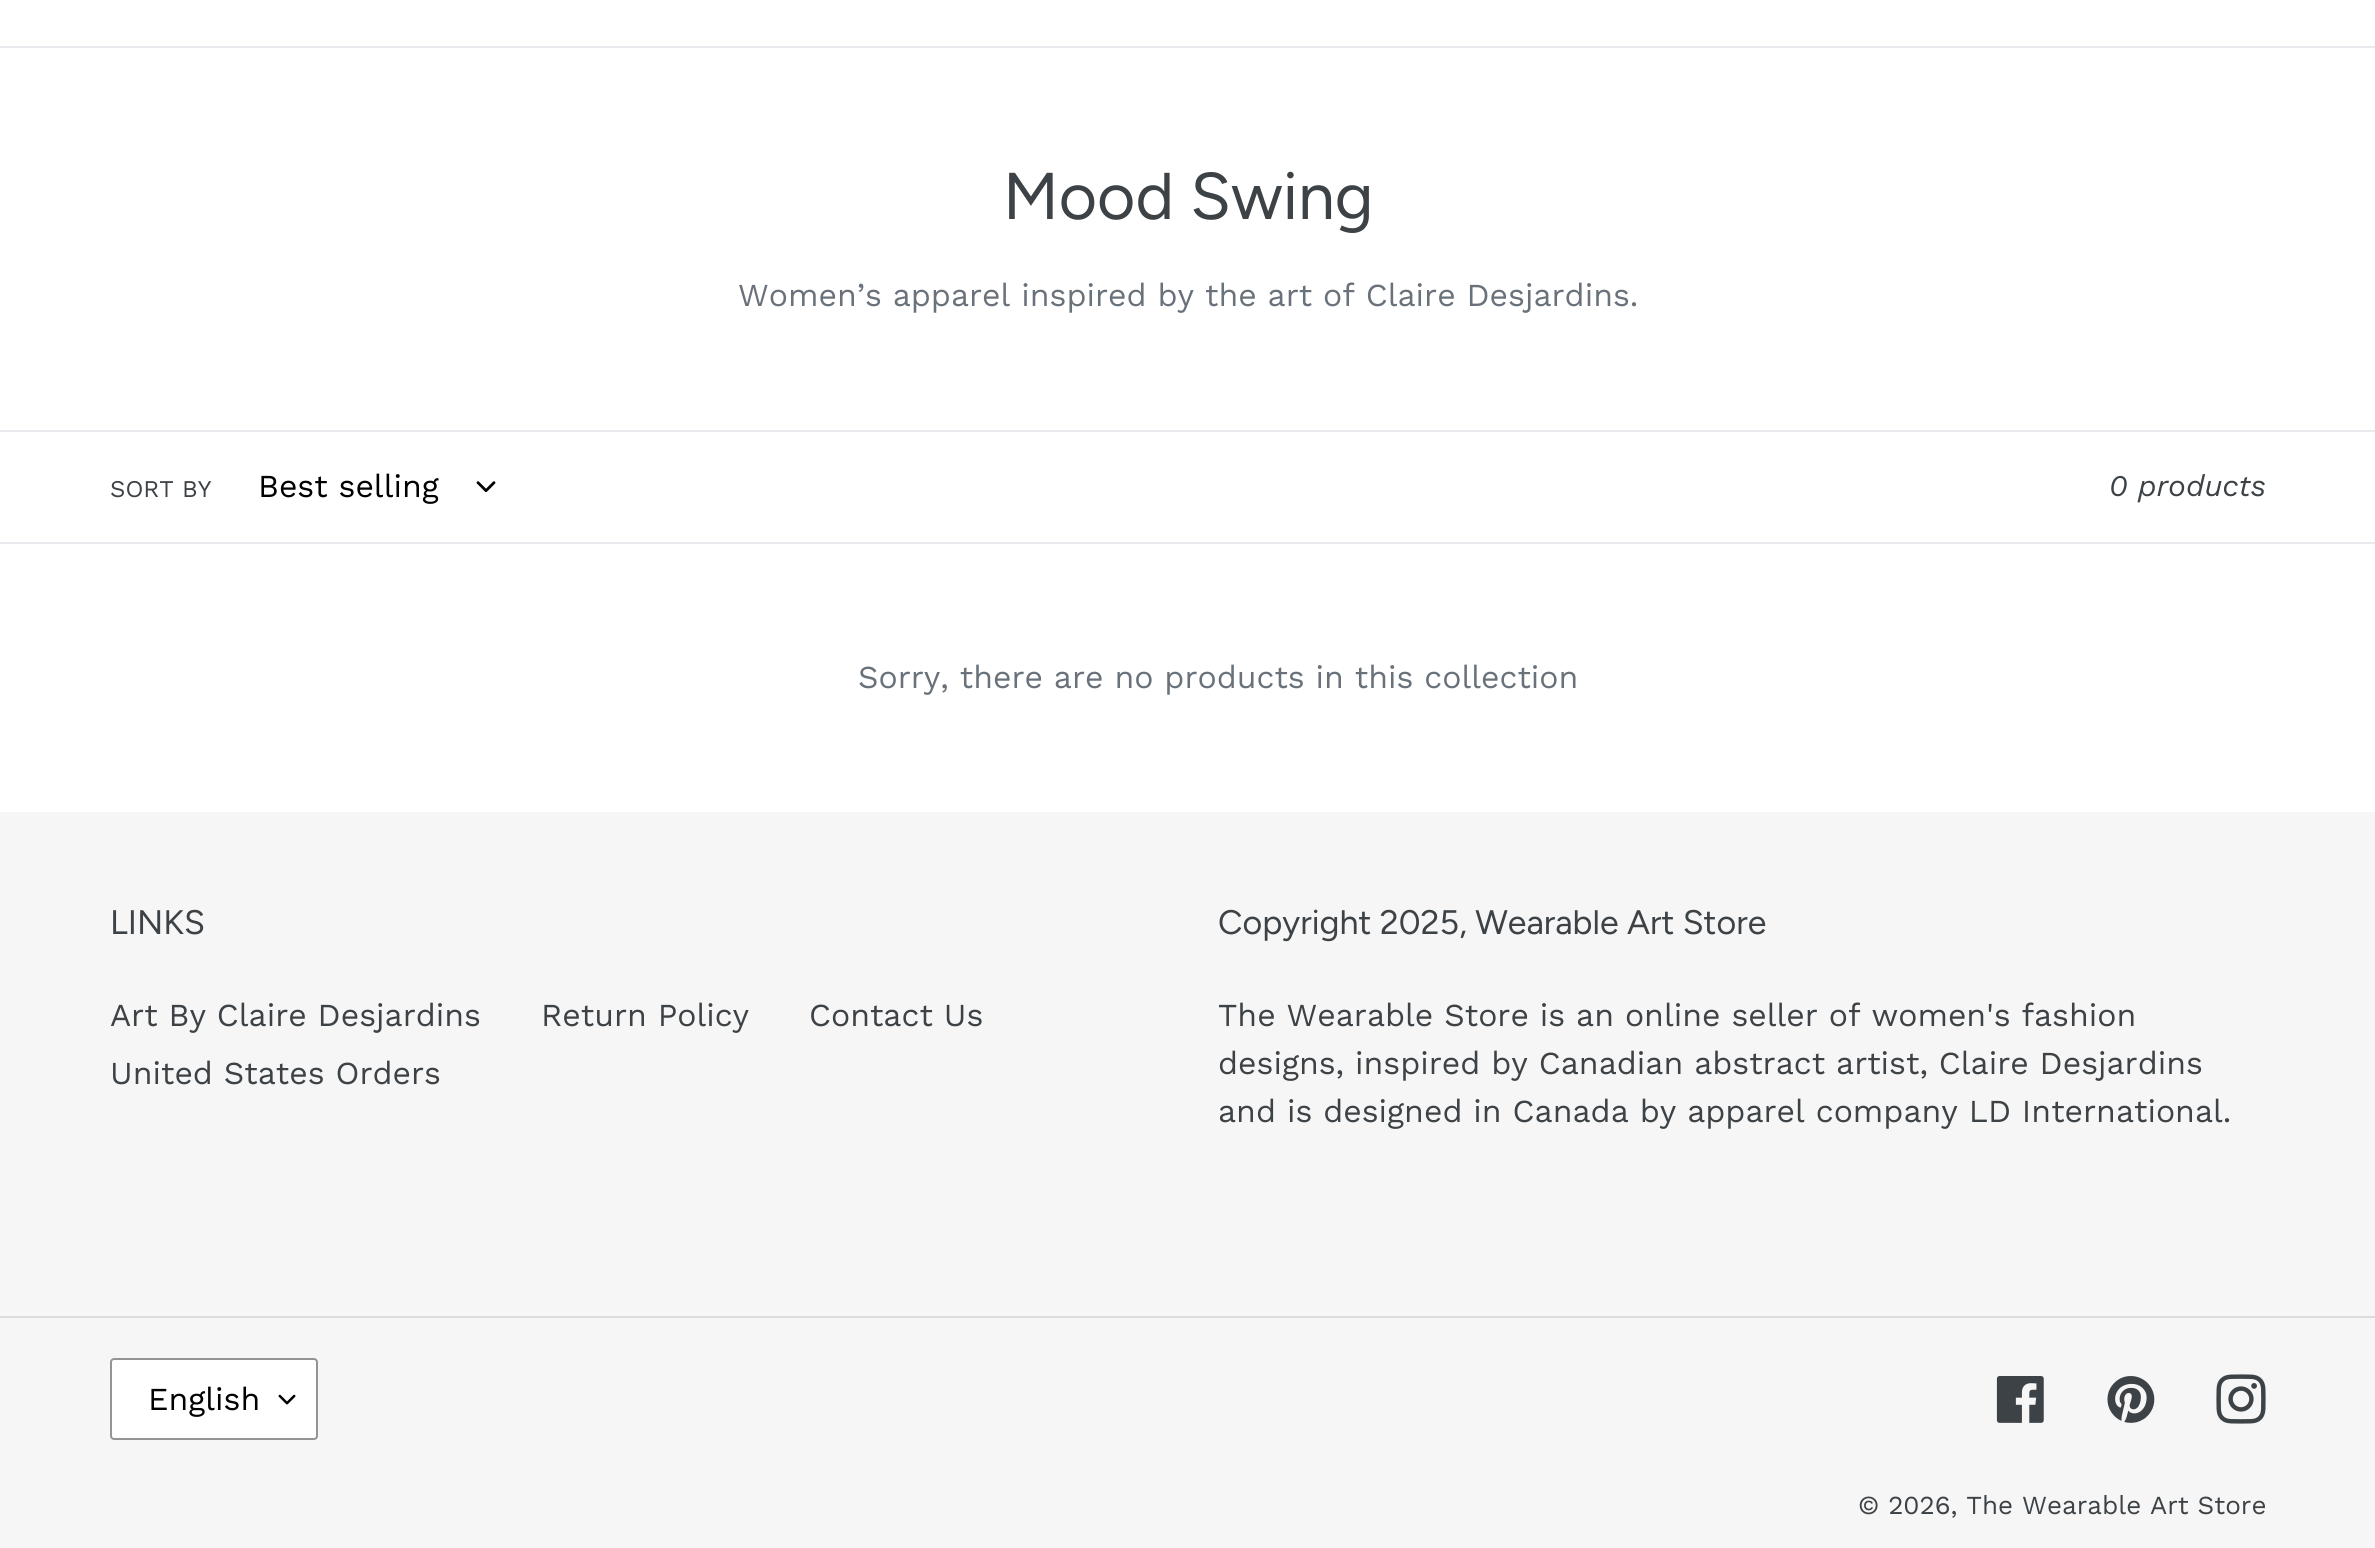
import math
import cairo

surface = cairo.ImageSurface(cairo.FORMAT_RGB24, 2375, 1548)
ctx = cairo.Context(surface)
options = cairo.FontOptions()
options.set_hint_metrics(cairo.HINT_METRICS_OFF)
options.set_hint_style(cairo.HINT_STYLE_NONE)
ctx.set_font_options(options)
ctx.set_miter_limit(4)


def round_rect(x, y, w, h, r):
    ctx.new_sub_path()
    for i, (u, v) in enumerate([(x + w - r, y + h - r), (x + r, y + h - r), (x + r, y + r), (x + w - r, y + r)]):
        ctx.arc(u, v, r, i * math.pi / 2, (i + 1) * math.pi / 2)
    ctx.close_path()


def picture(path, x, y, w, h):
    ctx.save()
    ctx.set_source_surface(cairo.ImageSurface.create_from_png(path), x, y)
    ctx.rectangle(x, y, w, h)
    ctx.fill()
    ctx.restore()


ctx.set_source_rgb(1, 1, 1)
ctx.paint()
ctx.set_source_rgb(0.91, 0.914, 0.922)
ctx.rectangle(0, 46, 2375, 2)
ctx.fill()
ctx.select_font_face("Figtree")
ctx.set_font_size(66)
ctx.set_source_rgb(0.239, 0.259, 0.275)
ctx.move_to(1003, 219)
ctx.show_text("Mood Swing")
ctx.select_font_face("Work Sans")
ctx.set_font_size(32)
ctx.set_source_rgb(0.412, 0.447, 0.482)
ctx.move_to(738, 306)
ctx.show_text("Women’s apparel inspired by the art of Claire Desjardins.")
ctx.set_source_rgb(0.91, 0.914, 0.922)
ctx.rectangle(0, 430, 2375, 2)
ctx.fill()
ctx.rectangle(0, 542, 2375, 2)
ctx.fill()
ctx.set_font_size(24)
ctx.set_source_rgb(0.239, 0.259, 0.275)
ctx.move_to(110, 497)
ctx.show_text("SORT BY")
ctx.set_font_size(32)
ctx.set_source_rgb(0, 0, 0)
ctx.move_to(258, 497)
ctx.show_text("Best selling")
picture("img1.png", 476, 481, 20, 11)
ctx.select_font_face("Work Sans", cairo.FONT_SLANT_ITALIC)
ctx.set_font_size(30)
ctx.set_source_rgb(0.239, 0.259, 0.275)
ctx.move_to(2109, 496)
ctx.show_text("0 products")
ctx.select_font_face("Work Sans")
ctx.set_font_size(32)
ctx.set_source_rgb(0.412, 0.447, 0.482)
ctx.move_to(858, 688)
ctx.show_text("Sorry, there are no products in this collection")
ctx.set_source_rgb(0.961, 0.961, 0.961)
ctx.rectangle(0, 812, 2375, 736)
ctx.fill()
ctx.select_font_face("Figtree")
ctx.set_font_size(34)
ctx.set_source_rgb(0.239, 0.259, 0.275)
ctx.move_to(110, 934)
ctx.show_text("LINKS")
ctx.select_font_face("Work Sans")
ctx.set_font_size(32)
ctx.move_to(110, 1026)
ctx.show_text("Art By Claire Desjardins")
ctx.move_to(541, 1026)
ctx.show_text("Return Policy")
ctx.move_to(809, 1026)
ctx.show_text("Contact Us")
ctx.move_to(110, 1084)
ctx.show_text("United States Orders")
ctx.select_font_face("Figtree")
ctx.set_font_size(34)
ctx.move_to(1218, 934)
ctx.show_text("Copyright 2025, Wearable Art Store")
ctx.select_font_face("Work Sans")
ctx.set_font_size(32)
ctx.move_to(1218, 1026)
ctx.show_text("The Wearable Store is an online seller of women's fashion")
ctx.move_to(1218, 1074)
ctx.show_text("designs, inspired by Canadian abstract artist, Claire Desjardins")
ctx.move_to(1218, 1122)
ctx.show_text("and is designed in Canada by apparel company LD International.")
ctx.set_source_rgb(0.863, 0.863, 0.863)
ctx.rectangle(0, 1316, 2375, 2)
ctx.fill()
ctx.set_source_rgb(1, 1, 1)
round_rect(110, 1358, 208, 82, 4)
ctx.fill()
picture("img2.png", 278, 1394, 18, 11)
round_rect(111, 1359, 206, 80, 3)
ctx.set_source_rgb(0.58, 0.58, 0.58)
ctx.stroke()
ctx.set_source_rgb(0, 0, 0)
ctx.move_to(148, 1410)
ctx.show_text("English")
picture("img3.png", 1996, 1376, 48, 47)
picture("img4.png", 2107, 1376, 48, 47)
picture("img5.png", 2216, 1374, 50, 50)
ctx.set_font_size(26)
ctx.set_source_rgb(0.239, 0.259, 0.275)
ctx.move_to(1858, 1514)
ctx.show_text("© 2026, The Wearable Art Store")
surface.write_to_png("page.png")
